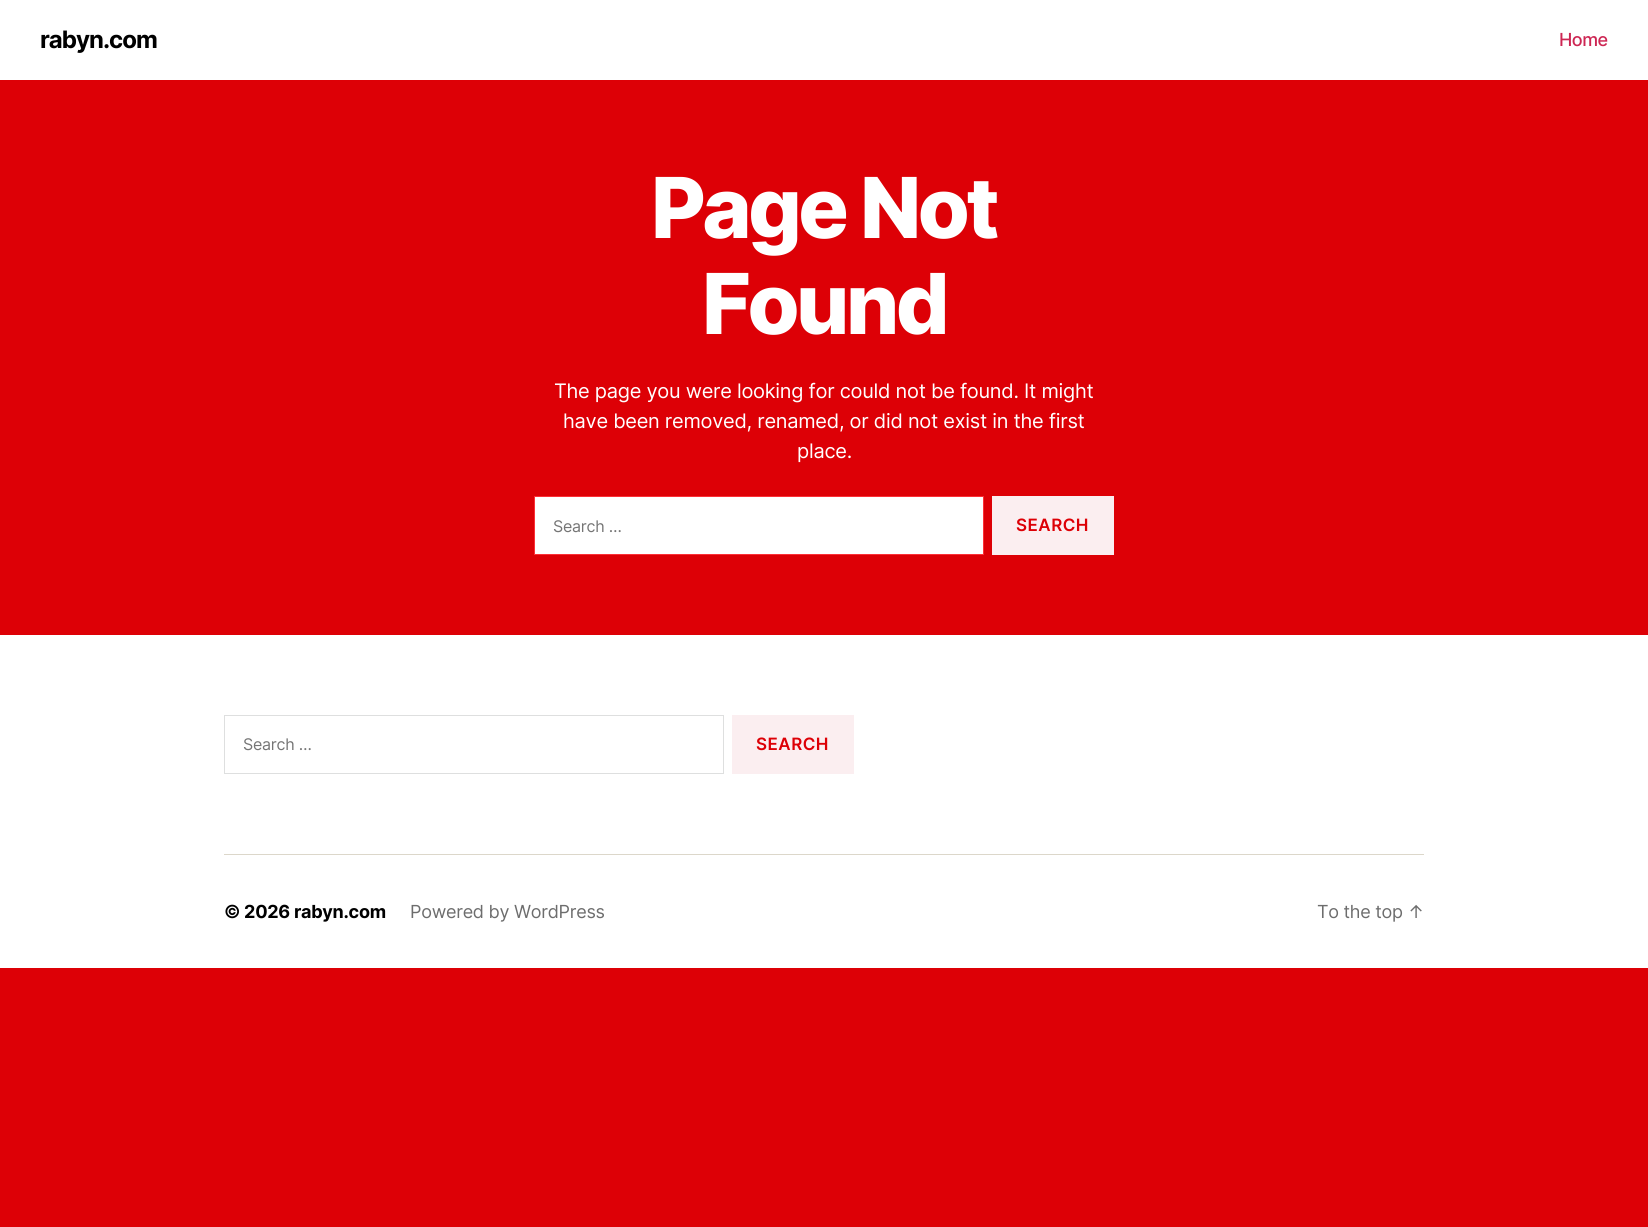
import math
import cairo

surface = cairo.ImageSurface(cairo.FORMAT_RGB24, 1648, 1227)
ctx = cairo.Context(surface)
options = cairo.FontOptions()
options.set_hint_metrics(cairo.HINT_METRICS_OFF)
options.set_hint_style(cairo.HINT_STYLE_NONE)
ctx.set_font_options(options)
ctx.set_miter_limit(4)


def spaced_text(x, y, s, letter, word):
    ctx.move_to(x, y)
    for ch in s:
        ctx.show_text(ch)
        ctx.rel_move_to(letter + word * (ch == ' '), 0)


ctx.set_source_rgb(0.867, 0, 0.027)
ctx.paint()
ctx.set_source_rgb(1, 1, 1)
ctx.rectangle(0, 0, 1648, 80)
ctx.fill()
ctx.select_font_face("Inter", cairo.FONT_SLANT_NORMAL, cairo.FONT_WEIGHT_BOLD)
ctx.set_font_size(24)
ctx.set_source_rgb(0, 0, 0)
spaced_text(40, 48, "rabyn.com", -1, 0)
ctx.select_font_face("Inter Medium")
ctx.set_font_size(18)
ctx.set_source_rgb(0.804, 0.149, 0.325)
spaced_text(1559, 46, "Home", -0.5, 0)
ctx.select_font_face("Inter ExtraBold")
ctx.set_font_size(84)
ctx.set_source_rgb(1, 1, 1)
spaced_text(651, 238, "Page Not", -3.5, 0)
spaced_text(702, 334, "Found", -3.5, 0)
ctx.select_font_face("Inter")
ctx.set_font_size(20)
spaced_text(554, 398, "The page you were looking for could not be found. It might", -0.27, 0)
spaced_text(563, 428, "have been removed, renamed, or did not exist in the first", -0.27, 0)
spaced_text(797, 458, "place.", -0.27, 0)
ctx.rectangle(534.5, 496.5, 449, 58)
ctx.fill_preserve()
ctx.set_source_rgb(0.988, 0.184, 0.212)
ctx.set_line_width(1)
ctx.stroke()
ctx.set_font_size(16)
ctx.set_source_rgb(0.459, 0.459, 0.459)
spaced_text(553, 532, "Search …", -0.25, 0)
ctx.set_source_rgb(0.984, 0.933, 0.941)
ctx.rectangle(992, 496, 122, 59)
ctx.fill()
ctx.select_font_face("Inter SemiBold")
ctx.set_font_size(17)
ctx.set_source_rgb(0.867, 0, 0.027)
spaced_text(1016, 531, "SEARCH", 0.5, 0)
ctx.set_source_rgb(1, 1, 1)
ctx.rectangle(0, 635, 1648, 333)
ctx.fill()
ctx.set_source_rgb(0.863, 0.843, 0.792)
ctx.rectangle(224, 854, 1200, 1)
ctx.fill()
ctx.rectangle(224.5, 715.5, 499, 58)
ctx.set_source_rgb(0.871, 0.875, 0.875)
ctx.stroke()
ctx.select_font_face("Inter")
ctx.set_font_size(16)
ctx.set_source_rgb(0.459, 0.459, 0.459)
spaced_text(243, 750, "Search …", -0.25, 0)
ctx.set_source_rgb(0.984, 0.933, 0.941)
ctx.rectangle(732, 715, 122, 59)
ctx.fill()
ctx.select_font_face("Inter SemiBold")
ctx.set_font_size(17)
ctx.set_source_rgb(0.867, 0, 0.027)
spaced_text(756, 750, "SEARCH", 0.5, 0)
ctx.select_font_face("Inter", cairo.FONT_SLANT_NORMAL, cairo.FONT_WEIGHT_BOLD)
ctx.set_font_size(18)
ctx.set_source_rgb(0, 0, 0)
spaced_text(224, 918, "© 2026 rabyn.com", -0.27, 0)
ctx.select_font_face("Inter")
ctx.set_source_rgb(0.427, 0.427, 0.427)
spaced_text(410, 918, "Powered by WordPress", -0.27, 0)
spaced_text(1317, 918, "To the top ↑", -0.27, 0)
surface.write_to_png("page.png")
